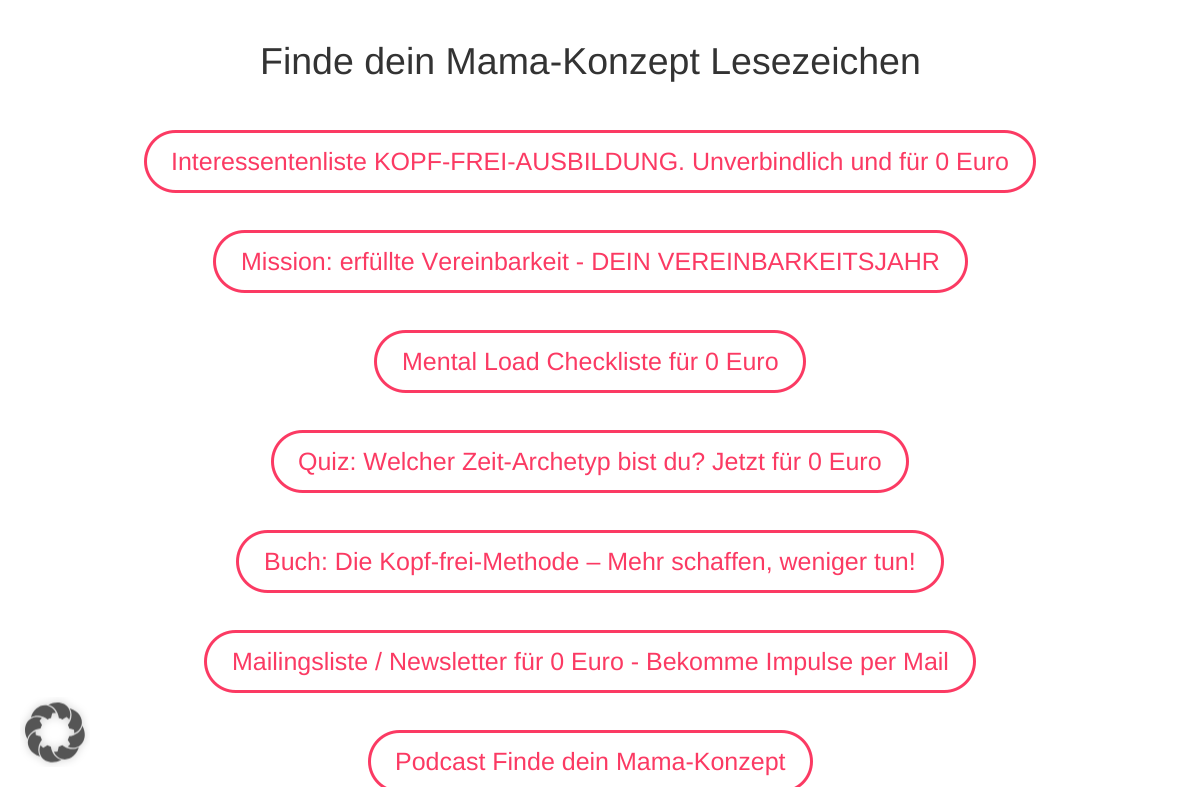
import math
import cairo

surface = cairo.ImageSurface(cairo.FORMAT_RGB24, 1180, 787)
ctx = cairo.Context(surface)
options = cairo.FontOptions()
options.set_hint_metrics(cairo.HINT_METRICS_OFF)
options.set_hint_style(cairo.HINT_STYLE_NONE)
ctx.set_font_options(options)
ctx.set_miter_limit(4)


def round_rect(x, y, w, h, r):
    ctx.new_sub_path()
    for i, (u, v) in enumerate([(x + w - r, y + h - r), (x + r, y + h - r), (x + r, y + r), (x + w - r, y + r)]):
        ctx.arc(u, v, r, i * math.pi / 2, (i + 1) * math.pi / 2)
    ctx.close_path()


def picture(path, x, y, w, h):
    ctx.save()
    ctx.set_source_surface(cairo.ImageSurface.create_from_png(path), x, y)
    ctx.rectangle(x, y, w, h)
    ctx.fill()
    ctx.restore()


ctx.set_source_rgb(1, 1, 1)
ctx.paint()
picture("img1.png", 20, 697, 70, 70)
ctx.select_font_face("Liberation Sans")
ctx.set_font_size(37.5)
ctx.set_source_rgb(0.2, 0.2, 0.2)
ctx.move_to(260, 74)
ctx.show_text("Finde dein Mama-Konzept Lesezeichen")
round_rect(145.5, 131.5, 889, 60, 30)
ctx.set_source_rgb(0.984, 0.227, 0.388)
ctx.set_line_width(3)
ctx.stroke()
ctx.set_font_size(25)
ctx.move_to(171, 170)
ctx.show_text("Interessentenliste KOPF-FREI-AUSBILDUNG. Unverbindlich und für 0 Euro")
round_rect(214.5, 231.5, 752, 60, 30)
ctx.stroke()
ctx.move_to(241, 270)
ctx.show_text("Mission: erfüllte Vereinbarkeit - DEIN VEREINBARKEITSJAHR")
round_rect(375.5, 331.5, 429, 60, 30)
ctx.stroke()
ctx.move_to(402, 370)
ctx.show_text("Mental Load Checkliste für 0 Euro")
round_rect(272.5, 431.5, 635, 60, 30)
ctx.stroke()
ctx.move_to(298, 470)
ctx.show_text("Quiz: Welcher Zeit-Archetyp bist du? Jetzt für 0 Euro")
round_rect(237.5, 531.5, 705, 60, 30)
ctx.stroke()
ctx.move_to(264, 570)
ctx.show_text("Buch: Die Kopf-frei-Methode – Mehr schaffen, weniger tun!")
round_rect(205.5, 631.5, 769, 60, 30)
ctx.stroke()
ctx.move_to(232, 670)
ctx.show_text("Mailingsliste / Newsletter für 0 Euro - Bekomme Impulse per Mail")
round_rect(369.5, 731.5, 442, 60, 30)
ctx.stroke()
ctx.move_to(395, 770)
ctx.show_text("Podcast Finde dein Mama-Konzept")
surface.write_to_png("page.png")
